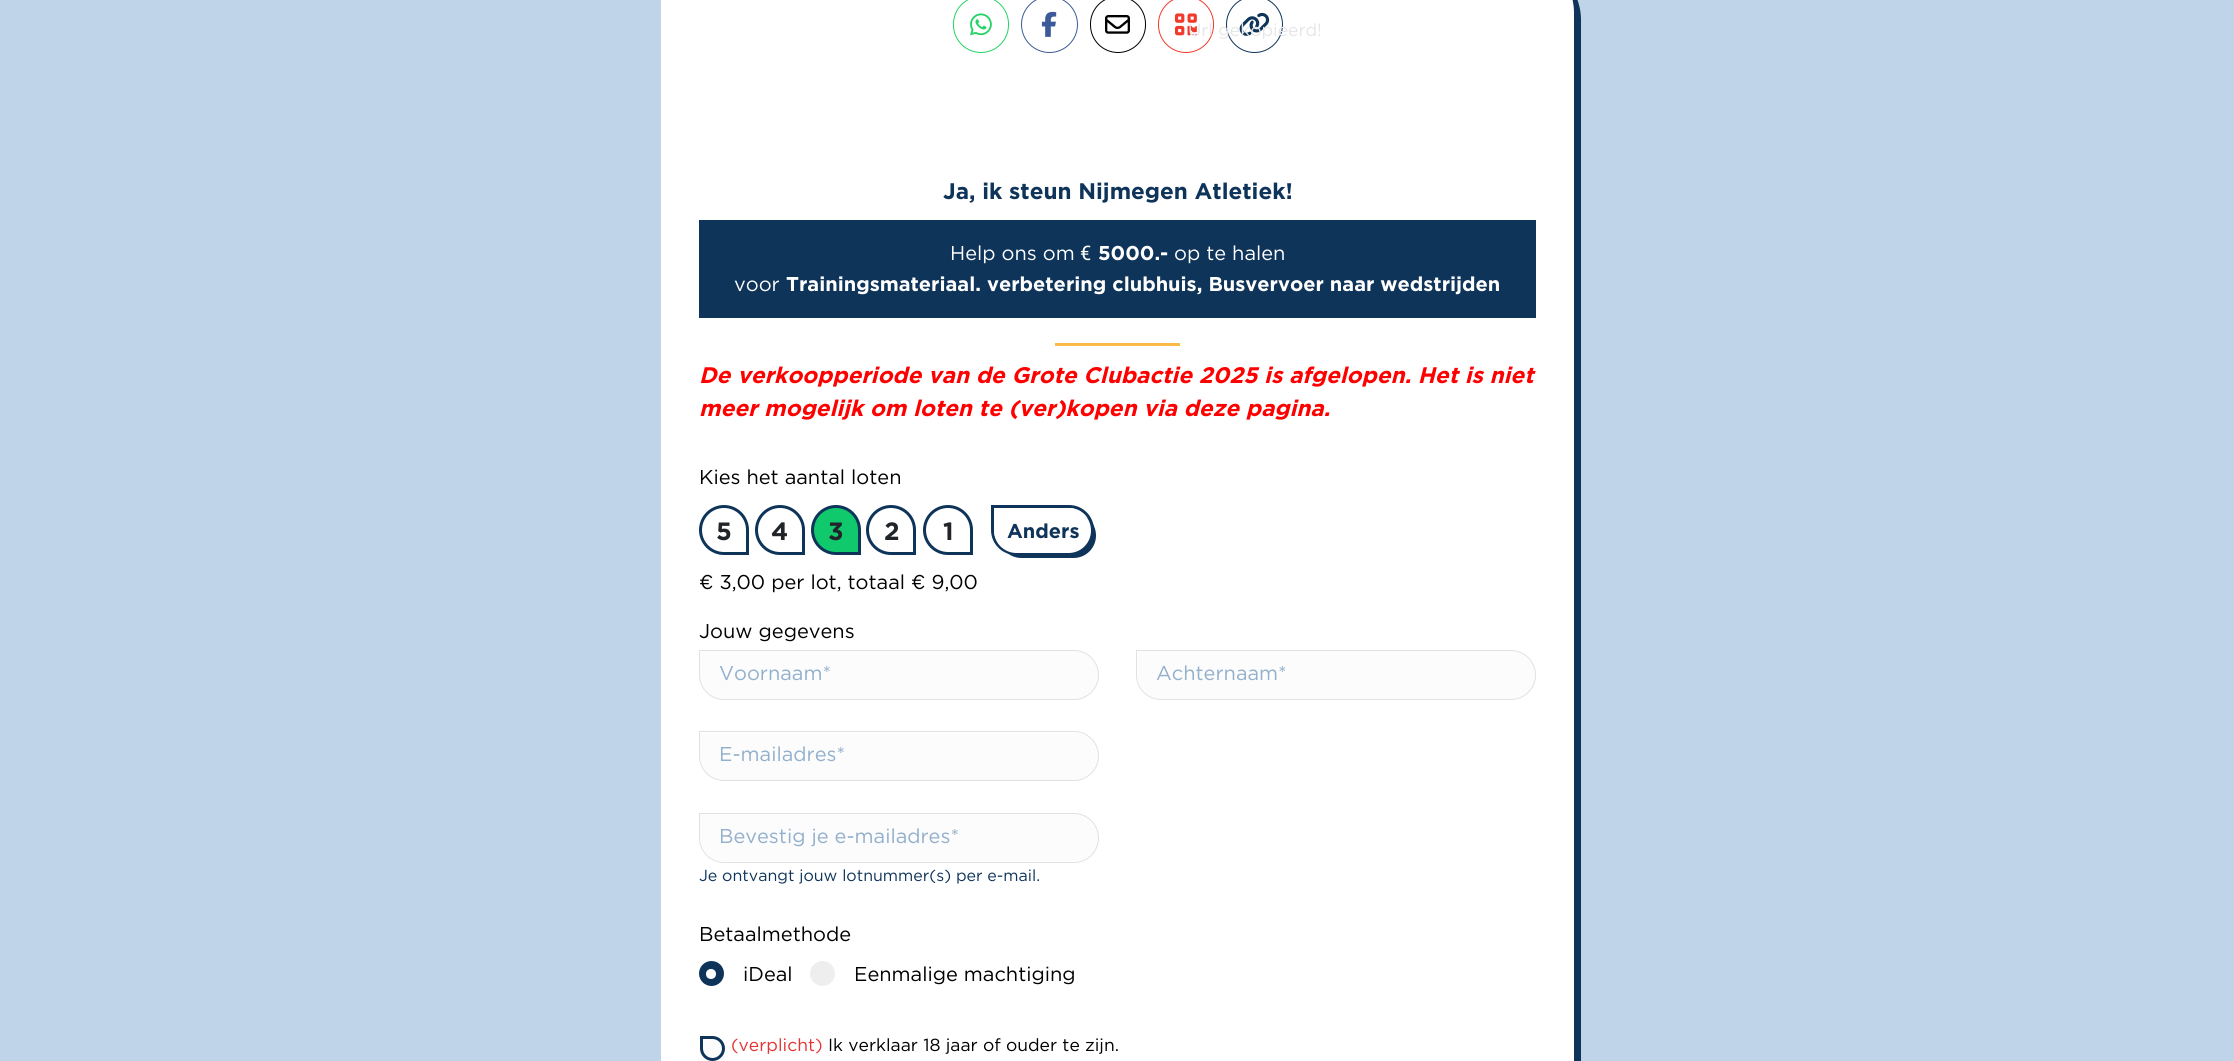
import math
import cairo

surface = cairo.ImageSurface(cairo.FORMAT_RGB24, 2234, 1061)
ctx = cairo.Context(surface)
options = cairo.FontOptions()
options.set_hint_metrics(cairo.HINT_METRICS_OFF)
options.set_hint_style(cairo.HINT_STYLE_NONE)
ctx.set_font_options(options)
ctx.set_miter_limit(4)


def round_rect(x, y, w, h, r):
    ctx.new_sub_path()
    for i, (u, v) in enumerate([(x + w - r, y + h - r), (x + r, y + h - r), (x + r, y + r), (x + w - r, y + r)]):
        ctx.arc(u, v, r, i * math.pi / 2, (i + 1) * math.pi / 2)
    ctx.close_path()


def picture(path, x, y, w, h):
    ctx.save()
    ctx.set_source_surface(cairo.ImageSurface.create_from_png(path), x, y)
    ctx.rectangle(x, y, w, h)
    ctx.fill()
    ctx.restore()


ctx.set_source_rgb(0.749, 0.831, 0.91)
ctx.paint()
ctx.set_source_rgb(0.055, 0.204, 0.353)
ctx.new_path()
ctx.move_to(669, -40)
ctx.line_to(1521, -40)
ctx.curve_to(1554, -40, 1581, -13, 1581, 20)
ctx.line_to(1581, 1061)
ctx.curve_to(1581, 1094, 1554, 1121, 1521, 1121)
ctx.line_to(729, 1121)
ctx.curve_to(696, 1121, 669, 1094, 669, 1061)
ctx.close_path()
ctx.fill()
ctx.set_source_rgb(1, 1, 1)
ctx.new_path()
ctx.move_to(661, -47)
ctx.line_to(1514, -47)
ctx.curve_to(1547, -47, 1574, -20, 1574, 13)
ctx.line_to(1574, 1061)
ctx.curve_to(1574, 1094, 1547, 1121, 1514, 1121)
ctx.line_to(721, 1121)
ctx.curve_to(688, 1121, 661, 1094, 661, 1061)
ctx.close_path()
ctx.fill()
round_rect(953.5, -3.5, 55, 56, 27.5)
ctx.set_source_rgb(0.145, 0.827, 0.4)
ctx.set_line_width(1)
ctx.stroke()
picture("img1.png", 970, 13, 22, 23)
ctx.arc(1049.5, 24.5, 28, 0, 2 * math.pi)
ctx.set_source_rgb(0.235, 0.353, 0.6)
ctx.stroke()
picture("img2.png", 1041, 11, 16, 26)
round_rect(1090.5, -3.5, 55, 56, 27.5)
ctx.set_source_rgb(0, 0, 0)
ctx.stroke()
picture("img3.png", 1105, 15, 25, 19)
round_rect(1158.5, -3.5, 55, 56, 27.5)
ctx.set_source_rgb(0.941, 0.231, 0.173)
ctx.stroke()
picture("img4.png", 1175, 13, 22, 23)
ctx.arc(1254.5, 24.5, 28, 0, 2 * math.pi)
ctx.set_source_rgb(0.055, 0.204, 0.353)
ctx.stroke()
picture("img5.png", 1239, 12, 31, 24)
ctx.select_font_face("Gotham")
ctx.set_font_size(17.5)
ctx.set_source_rgb(0.902, 0.902, 0.914)
ctx.move_to(1188, 36)
ctx.show_text("Url gekopieerd!")
ctx.select_font_face("Gotham", cairo.FONT_SLANT_NORMAL, cairo.FONT_WEIGHT_BOLD)
ctx.set_font_size(22.5)
ctx.set_source_rgb(0.055, 0.204, 0.353)
ctx.move_to(943, 199)
ctx.show_text("Ja, ik steun Nijmegen Atletiek!")
ctx.rectangle(699, 220, 837, 98)
ctx.fill()
ctx.select_font_face("Gotham")
ctx.set_font_size(20)
ctx.set_source_rgb(1, 1, 1)
ctx.move_to(950, 260)
ctx.show_text("Help ons om")
ctx.select_font_face("Roboto")
ctx.move_to(1080, 260)
ctx.show_text("€")
ctx.select_font_face("Gotham", cairo.FONT_SLANT_NORMAL, cairo.FONT_WEIGHT_BOLD)
ctx.move_to(1098, 260)
ctx.show_text("5000.-")
ctx.select_font_face("Gotham")
ctx.move_to(1174, 260)
ctx.show_text("op te halen")
ctx.move_to(734, 291)
ctx.show_text("voor")
ctx.select_font_face("Gotham", cairo.FONT_SLANT_NORMAL, cairo.FONT_WEIGHT_BOLD)
ctx.move_to(786, 291)
ctx.show_text("Trainingsmateriaal. verbetering clubhuis, Busvervoer naar wedstrijden")
ctx.set_source_rgb(0.976, 0.729, 0.282)
ctx.rectangle(1055, 343, 125, 3)
ctx.fill()
ctx.select_font_face("Gotham", cairo.FONT_SLANT_ITALIC, cairo.FONT_WEIGHT_BOLD)
ctx.set_font_size(22.5)
ctx.set_source_rgb(1, 0, 0)
ctx.move_to(699, 383)
ctx.show_text("De verkoopperiode van de Grote Clubactie 2025 is afgelopen. Het is niet")
ctx.move_to(699, 416)
ctx.show_text("meer mogelijk om loten te (ver)kopen via deze pagina.")
ctx.select_font_face("Gotham")
ctx.set_font_size(20)
ctx.set_source_rgb(0, 0, 0)
ctx.move_to(699, 484)
ctx.show_text("Kies het aantal loten")
ctx.new_path()
ctx.move_to(724, 506.5)
ctx.curve_to(737, 506.5, 747.5, 517, 747.5, 530)
ctx.line_to(747.5, 553.5)
ctx.line_to(724, 553.5)
ctx.curve_to(711, 553.5, 700.5, 543, 700.5, 530)
ctx.curve_to(700.5, 517, 711, 506.5, 724, 506.5)
ctx.close_path()
ctx.set_source_rgb(0.055, 0.204, 0.353)
ctx.set_line_width(3)
ctx.stroke()
ctx.select_font_face("Gotham", cairo.FONT_SLANT_NORMAL, cairo.FONT_WEIGHT_BOLD)
ctx.set_font_size(25)
ctx.set_source_rgb(0.129, 0.145, 0.161)
ctx.move_to(716, 540)
ctx.show_text("5")
ctx.new_path()
ctx.move_to(780, 506.5)
ctx.curve_to(793, 506.5, 803.5, 517, 803.5, 530)
ctx.line_to(803.5, 553.5)
ctx.line_to(780, 553.5)
ctx.curve_to(767, 553.5, 756.5, 543, 756.5, 530)
ctx.curve_to(756.5, 517, 767, 506.5, 780, 506.5)
ctx.close_path()
ctx.set_source_rgb(0.055, 0.204, 0.353)
ctx.stroke()
ctx.set_source_rgb(0.129, 0.145, 0.161)
ctx.move_to(771, 540)
ctx.show_text("4")
ctx.set_source_rgb(0.067, 0.788, 0.427)
ctx.new_path()
ctx.move_to(836, 506.5)
ctx.curve_to(849, 506.5, 859.5, 517, 859.5, 530)
ctx.line_to(859.5, 553.5)
ctx.line_to(836, 553.5)
ctx.curve_to(823, 553.5, 812.5, 543, 812.5, 530)
ctx.curve_to(812.5, 517, 823, 506.5, 836, 506.5)
ctx.close_path()
ctx.fill_preserve()
ctx.set_source_rgb(0.055, 0.204, 0.353)
ctx.stroke()
ctx.set_source_rgb(0.129, 0.145, 0.161)
ctx.move_to(828, 540)
ctx.show_text("3")
ctx.new_path()
ctx.move_to(891, 506.5)
ctx.curve_to(904, 506.5, 914.5, 517, 914.5, 530)
ctx.line_to(914.5, 553.5)
ctx.line_to(891, 553.5)
ctx.curve_to(878, 553.5, 867.5, 543, 867.5, 530)
ctx.curve_to(867.5, 517, 878, 506.5, 891, 506.5)
ctx.close_path()
ctx.set_source_rgb(0.055, 0.204, 0.353)
ctx.stroke()
ctx.set_source_rgb(0.129, 0.145, 0.161)
ctx.move_to(884, 540)
ctx.show_text("2")
ctx.new_path()
ctx.move_to(948, 506.5)
ctx.curve_to(961, 506.5, 971.5, 517, 971.5, 530)
ctx.line_to(971.5, 553.5)
ctx.line_to(948, 553.5)
ctx.curve_to(935, 553.5, 924.5, 543, 924.5, 530)
ctx.curve_to(924.5, 517, 935, 506.5, 948, 506.5)
ctx.close_path()
ctx.set_source_rgb(0.055, 0.204, 0.353)
ctx.stroke()
ctx.set_source_rgb(0.129, 0.145, 0.161)
ctx.move_to(943, 540)
ctx.show_text("1")
ctx.new_path()
ctx.move_to(992.5, 506.5)
ctx.line_to(1069, 506.5)
ctx.curve_to(1082, 506.5, 1092.5, 517, 1092.5, 530)
ctx.curve_to(1092.5, 543, 1082, 553.5, 1069, 553.5)
ctx.line_to(1016, 553.5)
ctx.curve_to(1003, 553.5, 992.5, 543, 992.5, 530)
ctx.close_path()
ctx.set_source_rgb(0.055, 0.204, 0.353)
ctx.stroke()
ctx.new_path()
ctx.move_to(999, 513)
ctx.line_to(1073.5, 513)
ctx.curve_to(1086, 513, 1096, 523, 1096, 535.5)
ctx.curve_to(1096, 548, 1086, 558, 1073.5, 558)
ctx.line_to(1021.5, 558)
ctx.curve_to(1009, 558, 999, 548, 999, 535.5)
ctx.close_path()
ctx.fill()
ctx.set_source_rgb(1, 1, 1)
ctx.new_path()
ctx.move_to(994, 508)
ctx.line_to(1068.5, 508)
ctx.curve_to(1081, 508, 1091, 518, 1091, 530.5)
ctx.curve_to(1091, 543, 1081, 553, 1068.5, 553)
ctx.line_to(1016.5, 553)
ctx.curve_to(1004, 553, 994, 543, 994, 530.5)
ctx.close_path()
ctx.fill()
ctx.set_font_size(20)
ctx.set_source_rgb(0.055, 0.204, 0.353)
ctx.move_to(1007, 538)
ctx.show_text("Anders")
ctx.select_font_face("Gotham")
ctx.set_source_rgb(0, 0, 0)
ctx.move_to(699, 589)
ctx.show_text("€ 3,00 per lot, totaal € 9,00")
ctx.move_to(699, 638)
ctx.show_text("Jouw gegevens")
ctx.set_source_rgb(0.988, 0.988, 0.988)
ctx.new_path()
ctx.move_to(699.5, 650.5)
ctx.line_to(1074, 650.5)
ctx.curve_to(1087.5, 650.5, 1098.5, 661.5, 1098.5, 675)
ctx.curve_to(1098.5, 688.5, 1087.5, 699.5, 1074, 699.5)
ctx.line_to(724, 699.5)
ctx.curve_to(710.5, 699.5, 699.5, 688.5, 699.5, 675)
ctx.close_path()
ctx.fill_preserve()
ctx.set_source_rgb(0.882, 0.882, 0.882)
ctx.set_line_width(1)
ctx.stroke()
ctx.set_source_rgb(0.573, 0.686, 0.8)
ctx.move_to(719, 680)
ctx.show_text("Voornaam*")
ctx.set_source_rgb(0.988, 0.988, 0.988)
ctx.new_path()
ctx.move_to(1138, 651)
ctx.line_to(1511, 651)
ctx.curve_to(1524.5, 651, 1535, 661.5, 1535, 675)
ctx.curve_to(1535, 688.5, 1524.5, 699, 1511, 699)
ctx.line_to(1162, 699)
ctx.curve_to(1148.5, 699, 1138, 688.5, 1138, 675)
ctx.close_path()
ctx.fill()
ctx.new_path()
ctx.move_to(1136.5, 650.5)
ctx.line_to(1511, 650.5)
ctx.curve_to(1524.5, 650.5, 1535.5, 661.5, 1535.5, 675)
ctx.curve_to(1535.5, 688.5, 1524.5, 699.5, 1511, 699.5)
ctx.line_to(1161, 699.5)
ctx.curve_to(1147.5, 699.5, 1136.5, 688.5, 1136.5, 675)
ctx.close_path()
ctx.set_source_rgb(0.882, 0.882, 0.882)
ctx.stroke()
ctx.set_source_rgb(0.573, 0.686, 0.8)
ctx.move_to(1156, 680)
ctx.show_text("Achternaam*")
ctx.set_source_rgb(0.988, 0.988, 0.988)
ctx.new_path()
ctx.move_to(700, 733)
ctx.line_to(1074.5, 733)
ctx.curve_to(1087.5, 733, 1098, 743.5, 1098, 756.5)
ctx.curve_to(1098, 769.5, 1087.5, 780, 1074.5, 780)
ctx.line_to(723.5, 780)
ctx.curve_to(710.5, 780, 700, 769.5, 700, 756.5)
ctx.close_path()
ctx.fill()
ctx.new_path()
ctx.move_to(699.5, 731.5)
ctx.line_to(1074, 731.5)
ctx.curve_to(1087.5, 731.5, 1098.5, 742.5, 1098.5, 756)
ctx.curve_to(1098.5, 769.5, 1087.5, 780.5, 1074, 780.5)
ctx.line_to(724, 780.5)
ctx.curve_to(710.5, 780.5, 699.5, 769.5, 699.5, 756)
ctx.close_path()
ctx.set_source_rgb(0.882, 0.882, 0.882)
ctx.stroke()
ctx.set_source_rgb(0.573, 0.686, 0.8)
ctx.move_to(719, 761)
ctx.show_text("E-mailadres*")
ctx.set_source_rgb(0.988, 0.988, 0.988)
ctx.new_path()
ctx.move_to(700, 814)
ctx.line_to(1074.5, 814)
ctx.curve_to(1087.5, 814, 1098, 824.5, 1098, 837.5)
ctx.curve_to(1098, 850.5, 1087.5, 861, 1074.5, 861)
ctx.line_to(723.5, 861)
ctx.curve_to(710.5, 861, 700, 850.5, 700, 837.5)
ctx.close_path()
ctx.fill()
ctx.new_path()
ctx.move_to(699.5, 813.5)
ctx.line_to(1074, 813.5)
ctx.curve_to(1087.5, 813.5, 1098.5, 824.5, 1098.5, 838)
ctx.curve_to(1098.5, 851.5, 1087.5, 862.5, 1074, 862.5)
ctx.line_to(724, 862.5)
ctx.curve_to(710.5, 862.5, 699.5, 851.5, 699.5, 838)
ctx.close_path()
ctx.set_source_rgb(0.882, 0.882, 0.882)
ctx.stroke()
ctx.set_source_rgb(0.573, 0.686, 0.8)
ctx.move_to(719, 843)
ctx.show_text("Bevestig je e-mailadres*")
ctx.set_font_size(16)
ctx.set_source_rgb(0.055, 0.204, 0.353)
ctx.move_to(699, 881)
ctx.show_text("Je ontvangt jouw lotnummer(s) per e-mail.")
ctx.set_font_size(20)
ctx.set_source_rgb(0, 0, 0)
ctx.move_to(699, 941)
ctx.show_text("Betaalmethode")
ctx.set_source_rgb(0.055, 0.204, 0.353)
ctx.new_path()
ctx.arc(711.5, 973.5, 12.5, 0, 2 * math.pi)
ctx.fill()
ctx.set_source_rgb(1, 1, 1)
ctx.arc(711, 974, 5, 0, 2 * math.pi)
ctx.fill()
ctx.set_source_rgb(0, 0, 0)
ctx.move_to(743, 981)
ctx.show_text("iDeal")
ctx.set_source_rgb(0.933, 0.933, 0.933)
ctx.new_path()
ctx.arc(822.5, 973.5, 12.5, 0, 2 * math.pi)
ctx.fill()
ctx.set_source_rgb(0, 0, 0)
ctx.move_to(854, 981)
ctx.show_text("Eenmalige machtiging")
ctx.set_source_rgb(0.988, 0.988, 0.988)
ctx.new_path()
ctx.move_to(701.5, 1037.5)
ctx.line_to(712.5, 1037.5)
ctx.curve_to(718.5, 1037.5, 723.5, 1042.5, 723.5, 1048.5)
ctx.curve_to(723.5, 1054.5, 718.5, 1059.5, 712.5, 1059.5)
ctx.curve_to(706.5, 1059.5, 701.5, 1054.5, 701.5, 1048.5)
ctx.close_path()
ctx.fill_preserve()
ctx.set_source_rgb(0.055, 0.204, 0.353)
ctx.set_line_width(3)
ctx.stroke()
ctx.set_font_size(17.5)
ctx.set_source_rgb(0.902, 0.196, 0.2)
ctx.move_to(731, 1051)
ctx.show_text("(verplicht)")
ctx.set_source_rgb(0, 0, 0)
ctx.move_to(828, 1051)
ctx.show_text("Ik verklaar 18 jaar of ouder te zijn.")
surface.write_to_png("page.png")
